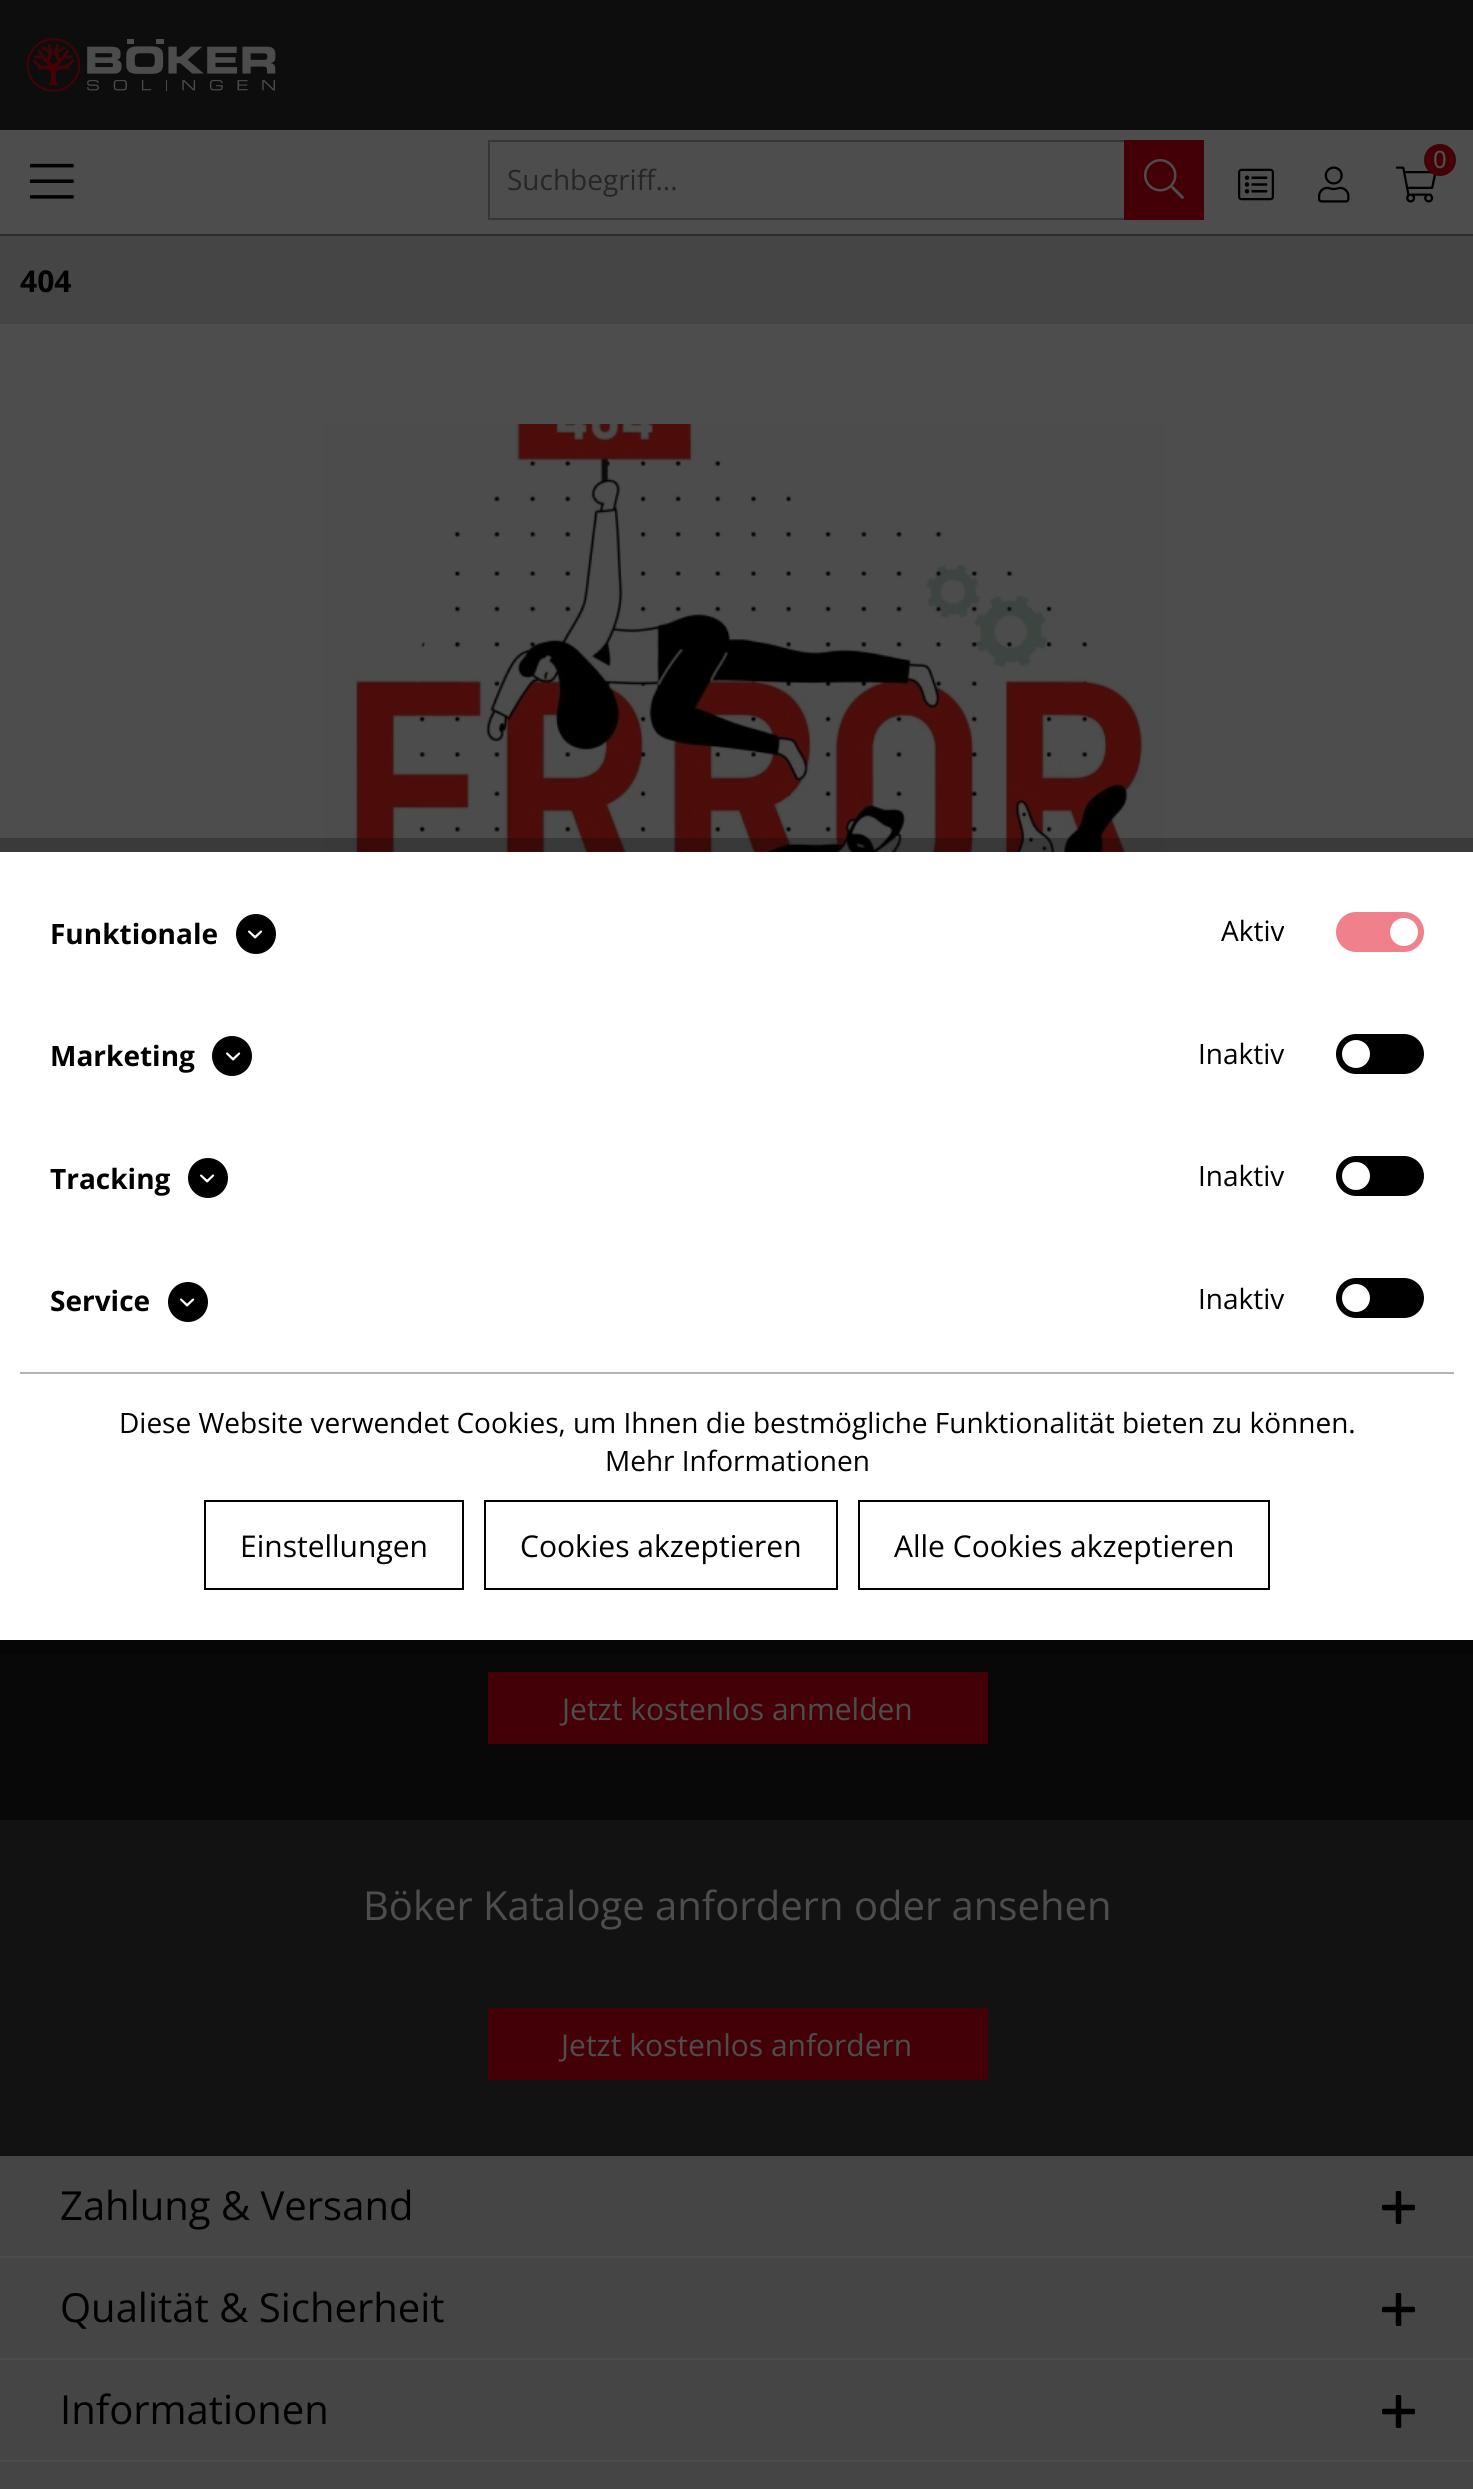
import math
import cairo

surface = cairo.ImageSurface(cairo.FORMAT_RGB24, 1473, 2489)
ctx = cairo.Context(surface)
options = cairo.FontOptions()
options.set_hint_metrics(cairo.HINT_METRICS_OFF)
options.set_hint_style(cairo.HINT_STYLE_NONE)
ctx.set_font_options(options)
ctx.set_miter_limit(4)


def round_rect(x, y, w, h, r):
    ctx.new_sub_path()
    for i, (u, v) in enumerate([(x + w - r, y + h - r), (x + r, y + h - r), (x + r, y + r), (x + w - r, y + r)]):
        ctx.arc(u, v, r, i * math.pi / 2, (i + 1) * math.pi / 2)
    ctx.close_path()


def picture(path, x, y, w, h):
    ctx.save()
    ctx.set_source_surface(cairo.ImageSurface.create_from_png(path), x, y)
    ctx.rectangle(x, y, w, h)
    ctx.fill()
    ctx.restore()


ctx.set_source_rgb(0.271, 0.271, 0.271)
ctx.paint()
ctx.set_source_rgb(0.051, 0.051, 0.051)
ctx.rectangle(0, 0, 1473, 130)
ctx.fill()
ctx.set_source_rgb(0.173, 0.173, 0.173)
ctx.rectangle(0, 234, 1473, 2)
ctx.fill()
picture("img1.png", 26, 38, 250, 54)
ctx.set_source_rgb(0.302, 0.302, 0.302)
ctx.rectangle(0, 130, 1473, 104)
ctx.fill()
picture("img2.png", 1396, 166, 40, 37)
ctx.set_source_rgb(0.267, 0, 0.031)
ctx.arc(1440, 160, 16, 0, 2 * math.pi)
ctx.fill()
ctx.select_font_face("Open Sans Medium")
ctx.set_font_size(24)
ctx.set_source_rgb(0.302, 0.302, 0.302)
ctx.move_to(1433, 168)
ctx.show_text("0")
picture("img3.png", 30, 163, 44, 36)
ctx.rectangle(489, 141, 714, 78)
ctx.set_source_rgb(0.212, 0.212, 0.212)
ctx.stroke()
ctx.select_font_face("Open Sans")
ctx.set_font_size(28)
ctx.set_source_rgb(0.149, 0.149, 0.149)
ctx.move_to(507, 190)
ctx.show_text("Suchbegriff...")
ctx.set_source_rgb(0.267, 0, 0.031)
ctx.rectangle(1124, 140, 80, 80)
ctx.fill()
picture("img4.png", 1144, 159, 40, 40)
picture("img5.png", 1238, 168, 36, 33)
picture("img6.png", 1318, 166, 32, 37)
ctx.set_source_rgb(0.302, 0.302, 0.302)
ctx.rectangle(0, 324, 1473, 528)
ctx.fill()
ctx.select_font_face("Open Sans", cairo.FONT_SLANT_NORMAL, cairo.FONT_WEIGHT_BOLD)
ctx.set_font_size(30)
ctx.set_source_rgb(0, 0, 0)
ctx.move_to(20, 292)
ctx.show_text("404")
picture("img7.png", 323, 424, 842, 428)
ctx.set_source_rgb(0.035, 0.035, 0.035)
ctx.rectangle(0, 1640, 1473, 180)
ctx.fill()
ctx.set_source_rgb(0.267, 0, 0.031)
ctx.rectangle(488, 1672, 500, 72)
ctx.fill()
ctx.select_font_face("Open Sans")
ctx.set_source_rgb(0.302, 0.302, 0.302)
ctx.move_to(562, 1720)
ctx.show_text("Jetzt kostenlos anmelden")
ctx.set_source_rgb(0.071, 0.071, 0.071)
ctx.rectangle(0, 1820, 1473, 336)
ctx.fill()
ctx.set_font_size(40)
ctx.set_source_rgb(0.302, 0.302, 0.302)
ctx.move_to(363, 1920)
ctx.show_text("Böker Kataloge anfordern oder ansehen")
ctx.set_source_rgb(0.267, 0, 0.031)
ctx.rectangle(488, 2008, 500, 72)
ctx.fill()
ctx.set_font_size(30)
ctx.set_source_rgb(0.302, 0.302, 0.302)
ctx.move_to(561, 2056)
ctx.show_text("Jetzt kostenlos anfordern")
ctx.rectangle(0, 2256, 1473, 2)
ctx.fill()
ctx.set_font_size(40)
ctx.set_source_rgb(0, 0, 0)
ctx.move_to(60, 2220)
ctx.show_text("Zahlung & Versand")
picture("img8.png", 1382, 2191, 33, 33)
ctx.set_source_rgb(0.302, 0.302, 0.302)
ctx.rectangle(0, 2358, 1473, 2)
ctx.fill()
ctx.set_source_rgb(0, 0, 0)
ctx.move_to(60, 2322)
ctx.show_text("Qualität & Sicherheit")
picture("img8.png", 1382, 2293, 33, 33)
ctx.set_source_rgb(0.302, 0.302, 0.302)
ctx.rectangle(0, 2460, 1473, 2)
ctx.fill()
ctx.set_source_rgb(0, 0, 0)
ctx.move_to(60, 2424)
ctx.show_text("Informationen")
picture("img8.png", 1382, 2395, 33, 33)
ctx.rectangle(-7, 845, 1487, 802)
ctx.set_source_rgba(0, 0, 0, 0.25)
ctx.set_line_width(14)
ctx.stroke()
ctx.set_source_rgb(1, 1, 1)
ctx.rectangle(0, 852, 1473, 788)
ctx.fill()
ctx.set_source_rgb(0.706, 0.706, 0.706)
ctx.rectangle(20, 1372, 1434, 2)
ctx.fill()
ctx.select_font_face("Open Sans", cairo.FONT_SLANT_NORMAL, cairo.FONT_WEIGHT_BOLD)
ctx.set_font_size(28)
ctx.set_source_rgb(0, 0, 0)
ctx.move_to(50, 944)
ctx.show_text("Funktionale")
ctx.new_path()
ctx.arc(256, 934, 20, 0, 2 * math.pi)
ctx.fill()
picture("img9.png", 248, 930, 15, 9)
ctx.select_font_face("Open Sans")
ctx.move_to(1221, 941)
ctx.show_text("Aktiv")
ctx.set_source_rgb(0.945, 0.502, 0.553)
round_rect(1336, 912, 88, 40, 20)
ctx.fill()
ctx.set_source_rgb(1, 1, 1)
ctx.arc(1404, 932, 14, 0, 2 * math.pi)
ctx.fill()
ctx.select_font_face("Open Sans", cairo.FONT_SLANT_NORMAL, cairo.FONT_WEIGHT_BOLD)
ctx.set_source_rgb(0, 0, 0)
ctx.move_to(50, 1066)
ctx.show_text("Marketing")
ctx.new_path()
ctx.arc(232, 1056, 20, 0, 2 * math.pi)
ctx.fill()
picture("img9.png", 226, 1052, 15, 9)
ctx.select_font_face("Open Sans")
ctx.move_to(1198, 1064)
ctx.show_text("Inaktiv")
round_rect(1336, 1034, 88, 40, 20)
ctx.fill()
ctx.set_source_rgb(1, 1, 1)
ctx.arc(1356, 1054, 14, 0, 2 * math.pi)
ctx.fill()
ctx.select_font_face("Open Sans", cairo.FONT_SLANT_NORMAL, cairo.FONT_WEIGHT_BOLD)
ctx.set_source_rgb(0, 0, 0)
ctx.move_to(50, 1189)
ctx.show_text("Tracking")
ctx.new_path()
ctx.arc(208, 1178, 20, 0, 2 * math.pi)
ctx.fill()
picture("img9.png", 200, 1174, 15, 9)
ctx.select_font_face("Open Sans")
ctx.move_to(1198, 1186)
ctx.show_text("Inaktiv")
round_rect(1336, 1156, 88, 40, 20)
ctx.fill()
ctx.set_source_rgb(1, 1, 1)
ctx.arc(1356, 1176, 14, 0, 2 * math.pi)
ctx.fill()
ctx.select_font_face("Open Sans", cairo.FONT_SLANT_NORMAL, cairo.FONT_WEIGHT_BOLD)
ctx.set_source_rgb(0, 0, 0)
ctx.move_to(50, 1311)
ctx.show_text("Service")
ctx.new_path()
ctx.arc(188, 1302, 20, 0, 2 * math.pi)
ctx.fill()
picture("img9.png", 180, 1298, 15, 9)
ctx.select_font_face("Open Sans")
ctx.move_to(1198, 1309)
ctx.show_text("Inaktiv")
round_rect(1336, 1278, 88, 40, 20)
ctx.fill()
ctx.set_source_rgb(1, 1, 1)
ctx.arc(1356, 1298, 14, 0, 2 * math.pi)
ctx.fill()
ctx.set_source_rgb(0, 0, 0)
ctx.move_to(119, 1433)
ctx.show_text("Diese Website verwendet Cookies, um Ihnen die bestmögliche Funktionalität bieten zu können.")
ctx.move_to(605, 1471)
ctx.show_text("Mehr Informationen")
ctx.rectangle(205, 1501, 258, 88)
ctx.set_line_width(2)
ctx.stroke()
ctx.set_font_size(30)
ctx.move_to(240, 1557)
ctx.show_text("Einstellungen")
ctx.rectangle(485, 1501, 352, 88)
ctx.stroke()
ctx.move_to(520, 1557)
ctx.show_text("Cookies akzeptieren")
ctx.rectangle(859, 1501, 410, 88)
ctx.stroke()
ctx.move_to(894, 1557)
ctx.show_text("Alle Cookies akzeptieren")
surface.write_to_png("page.png")
